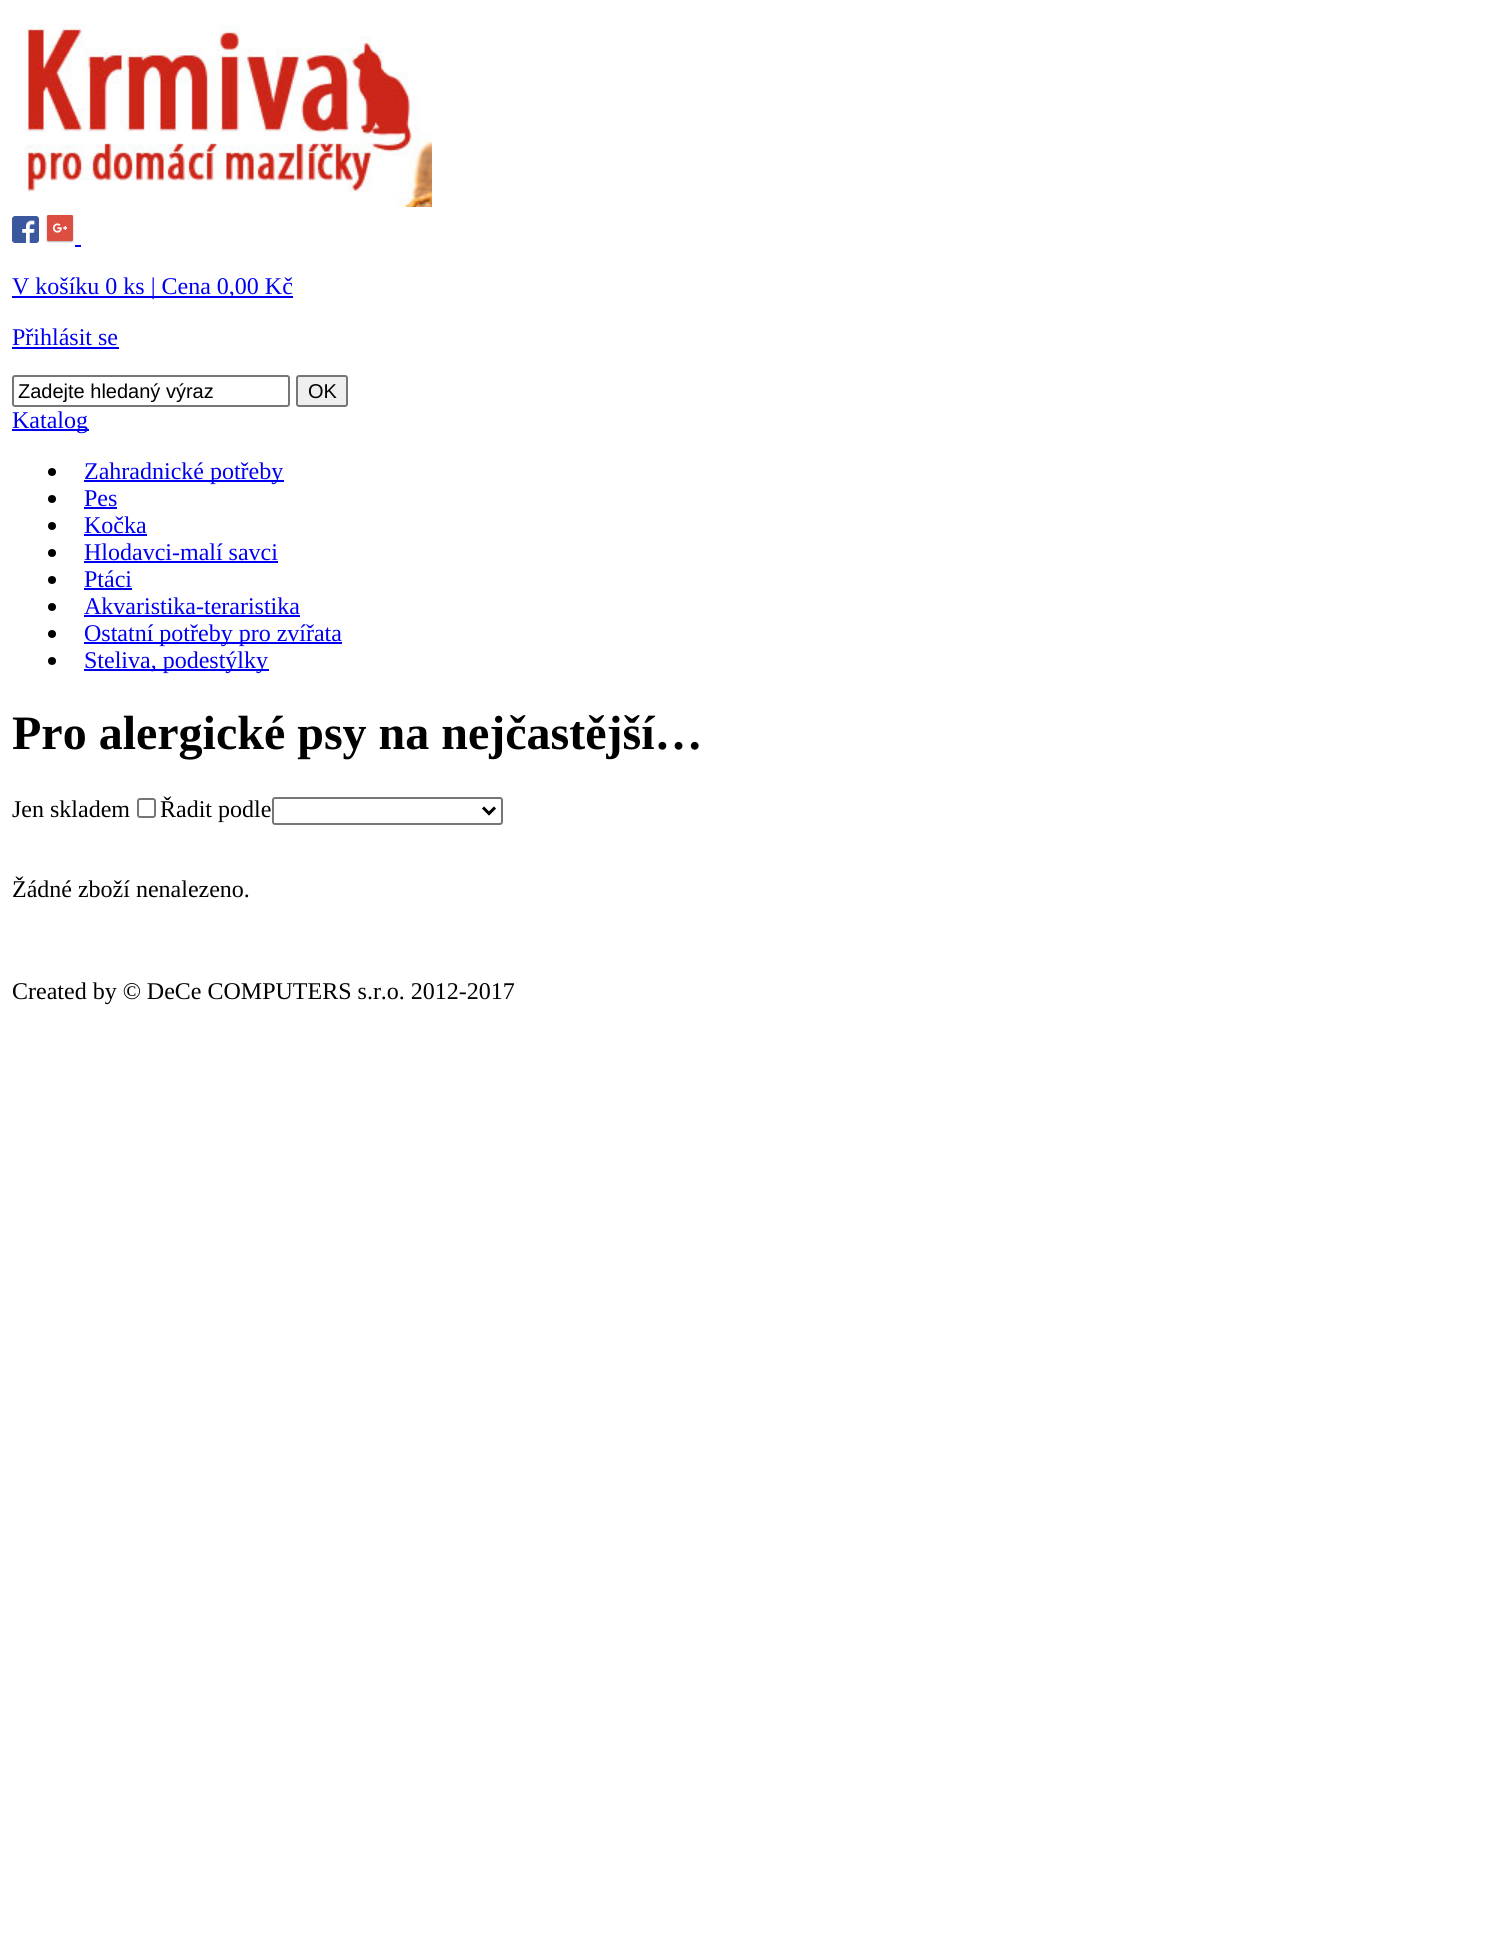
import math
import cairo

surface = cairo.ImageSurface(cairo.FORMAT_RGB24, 1501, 1960)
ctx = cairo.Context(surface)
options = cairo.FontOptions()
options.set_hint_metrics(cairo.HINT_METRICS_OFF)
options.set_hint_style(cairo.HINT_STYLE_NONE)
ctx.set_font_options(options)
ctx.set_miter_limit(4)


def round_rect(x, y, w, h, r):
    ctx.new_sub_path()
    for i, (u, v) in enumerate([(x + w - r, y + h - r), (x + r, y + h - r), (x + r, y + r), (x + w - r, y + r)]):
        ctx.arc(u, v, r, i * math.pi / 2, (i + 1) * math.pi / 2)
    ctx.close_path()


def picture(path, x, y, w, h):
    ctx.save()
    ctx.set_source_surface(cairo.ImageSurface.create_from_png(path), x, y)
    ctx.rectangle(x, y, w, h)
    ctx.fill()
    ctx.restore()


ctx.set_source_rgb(1, 1, 1)
ctx.paint()
picture("img1.png", 24, 24, 408, 183)
picture("img2.png", 12, 216, 27, 27)
picture("img3.png", 46, 214, 28, 29)
ctx.set_source_rgb(0, 0, 0.933)
ctx.rectangle(75, 245, 6, 2)
ctx.fill()
ctx.rectangle(12, 296, 281, 2)
ctx.fill()
ctx.select_font_face("Liberation Serif")
ctx.set_font_size(24)
ctx.move_to(12, 294)
ctx.show_text("V košíku 0 ks | Cena 0,00 Kč")
ctx.move_to(12, 345)
ctx.show_text("Přihlásit se")
ctx.rectangle(12, 347, 107, 2)
ctx.fill()
round_rect(13, 376, 276, 30, 2)
ctx.set_source_rgb(0.463, 0.463, 0.463)
ctx.stroke()
ctx.save()
ctx.rectangle(18, 380, 266, 22)
ctx.clip()
ctx.select_font_face("Liberation Sans")
ctx.set_font_size(20)
ctx.set_source_rgb(0, 0, 0)
ctx.move_to(18, 398)
ctx.show_text("Zadejte hledaný výraz")
ctx.restore()
ctx.set_source_rgb(0.937, 0.937, 0.937)
round_rect(297, 376, 50, 30, 2)
ctx.fill_preserve()
ctx.set_source_rgb(0.463, 0.463, 0.463)
ctx.stroke()
ctx.select_font_face("Liberation Sans")
ctx.set_font_size(20)
ctx.set_source_rgb(0, 0, 0)
ctx.move_to(308, 398)
ctx.show_text("OK")
ctx.set_source_rgb(0, 0, 0.933)
ctx.rectangle(12, 429, 77, 2)
ctx.fill()
ctx.select_font_face("Liberation Serif")
ctx.set_font_size(24)
ctx.move_to(12, 428)
ctx.show_text("Katalog")
ctx.set_source_rgb(0, 0, 0)
ctx.new_path()
ctx.arc(52, 472, 4, 0, 2 * math.pi)
ctx.fill()
ctx.set_source_rgb(0, 0, 0.933)
ctx.rectangle(84, 480, 200, 2)
ctx.fill()
ctx.move_to(84, 479)
ctx.show_text("Zahradnické potřeby")
ctx.set_source_rgb(0, 0, 0)
ctx.new_path()
ctx.arc(52, 499, 4, 0, 2 * math.pi)
ctx.fill()
ctx.set_source_rgb(0, 0, 0.933)
ctx.move_to(84, 506)
ctx.show_text("Pes")
ctx.rectangle(84, 507, 33, 2)
ctx.fill()
ctx.set_source_rgb(0, 0, 0)
ctx.arc(52, 526, 4, 0, 2 * math.pi)
ctx.fill()
ctx.set_source_rgb(0, 0, 0.933)
ctx.move_to(84, 533)
ctx.show_text("Kočka")
ctx.rectangle(84, 534, 63, 2)
ctx.fill()
ctx.set_source_rgb(0, 0, 0)
ctx.arc(52, 553, 4, 0, 2 * math.pi)
ctx.fill()
ctx.set_source_rgb(0, 0, 0.933)
ctx.move_to(84, 560)
ctx.show_text("Hlodavci-malí savci")
ctx.rectangle(84, 561, 194, 2)
ctx.fill()
ctx.set_source_rgb(0, 0, 0)
ctx.arc(52, 580, 4, 0, 2 * math.pi)
ctx.fill()
ctx.set_source_rgb(0, 0, 0.933)
ctx.move_to(84, 587)
ctx.show_text("Ptáci")
ctx.rectangle(84, 588, 48, 2)
ctx.fill()
ctx.set_source_rgb(0, 0, 0)
ctx.arc(52, 607, 4, 0, 2 * math.pi)
ctx.fill()
ctx.set_source_rgb(0, 0, 0.933)
ctx.move_to(84, 614)
ctx.show_text("Akvaristika-teraristika")
ctx.rectangle(84, 615, 216, 2)
ctx.fill()
ctx.set_source_rgb(0, 0, 0)
ctx.arc(52, 634, 4, 0, 2 * math.pi)
ctx.fill()
ctx.set_source_rgb(0, 0, 0.933)
ctx.rectangle(84, 642, 258, 2)
ctx.fill()
ctx.move_to(84, 641)
ctx.show_text("Ostatní potřeby pro zvířata")
ctx.set_source_rgb(0, 0, 0)
ctx.new_path()
ctx.arc(52, 661, 4, 0, 2 * math.pi)
ctx.fill()
ctx.set_source_rgb(0, 0, 0.933)
ctx.rectangle(84, 669, 185, 2)
ctx.fill()
ctx.move_to(84, 668)
ctx.show_text("Steliva, podestýlky")
ctx.select_font_face("Liberation Serif", cairo.FONT_SLANT_NORMAL, cairo.FONT_WEIGHT_BOLD)
ctx.set_font_size(48)
ctx.set_source_rgb(0, 0, 0)
ctx.move_to(12, 749)
ctx.show_text("Pro alergické psy na nejčastější…")
ctx.select_font_face("Liberation Serif")
ctx.set_font_size(24)
ctx.move_to(12, 817)
ctx.show_text("Jen skladem")
round_rect(138, 799, 17, 18, 2)
ctx.set_source_rgb(0.463, 0.463, 0.463)
ctx.stroke()
ctx.set_source_rgb(0, 0, 0)
ctx.move_to(160, 817)
ctx.show_text("Řadit podle")
round_rect(273, 798, 229, 26, 2)
ctx.set_source_rgb(0.463, 0.463, 0.463)
ctx.stroke()
ctx.new_path()
ctx.move_to(483, 807.5)
ctx.line_to(489, 813.5)
ctx.line_to(495, 807.5)
ctx.set_source_rgb(0, 0, 0)
ctx.set_line_width(3)
ctx.stroke()
ctx.move_to(12, 897)
ctx.show_text("Žádné zboží nenalezeno.")
ctx.move_to(12, 999)
ctx.show_text("Created by © DeCe COMPUTERS s.r.o. 2012-2017")
surface.write_to_png("page.png")
